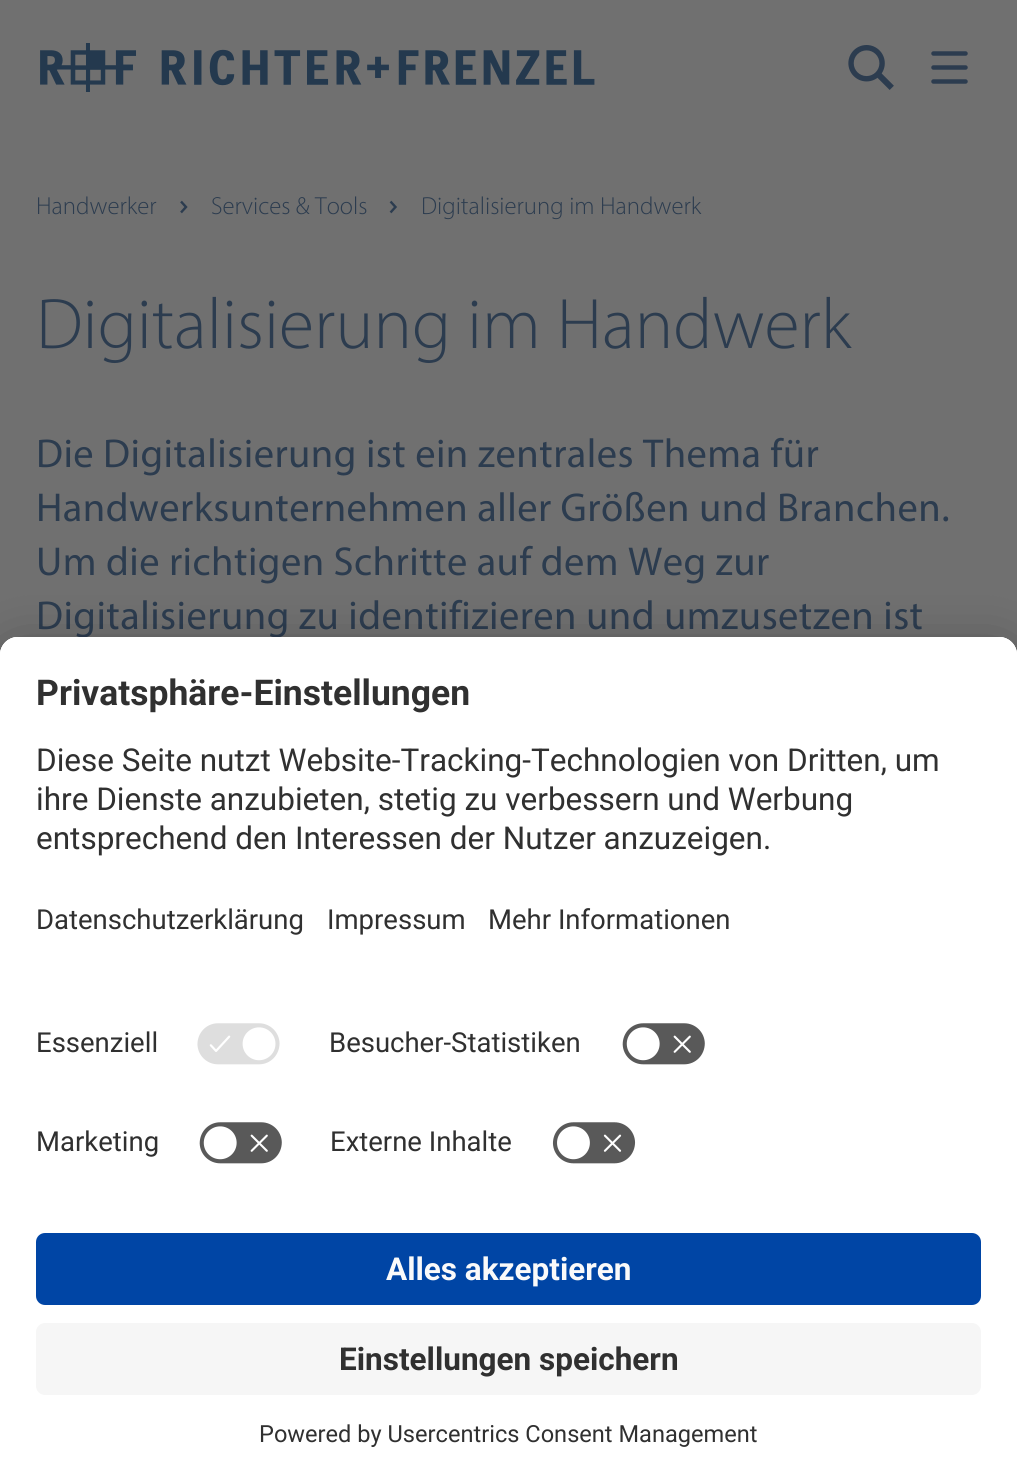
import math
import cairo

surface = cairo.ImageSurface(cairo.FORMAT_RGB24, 1017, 1483)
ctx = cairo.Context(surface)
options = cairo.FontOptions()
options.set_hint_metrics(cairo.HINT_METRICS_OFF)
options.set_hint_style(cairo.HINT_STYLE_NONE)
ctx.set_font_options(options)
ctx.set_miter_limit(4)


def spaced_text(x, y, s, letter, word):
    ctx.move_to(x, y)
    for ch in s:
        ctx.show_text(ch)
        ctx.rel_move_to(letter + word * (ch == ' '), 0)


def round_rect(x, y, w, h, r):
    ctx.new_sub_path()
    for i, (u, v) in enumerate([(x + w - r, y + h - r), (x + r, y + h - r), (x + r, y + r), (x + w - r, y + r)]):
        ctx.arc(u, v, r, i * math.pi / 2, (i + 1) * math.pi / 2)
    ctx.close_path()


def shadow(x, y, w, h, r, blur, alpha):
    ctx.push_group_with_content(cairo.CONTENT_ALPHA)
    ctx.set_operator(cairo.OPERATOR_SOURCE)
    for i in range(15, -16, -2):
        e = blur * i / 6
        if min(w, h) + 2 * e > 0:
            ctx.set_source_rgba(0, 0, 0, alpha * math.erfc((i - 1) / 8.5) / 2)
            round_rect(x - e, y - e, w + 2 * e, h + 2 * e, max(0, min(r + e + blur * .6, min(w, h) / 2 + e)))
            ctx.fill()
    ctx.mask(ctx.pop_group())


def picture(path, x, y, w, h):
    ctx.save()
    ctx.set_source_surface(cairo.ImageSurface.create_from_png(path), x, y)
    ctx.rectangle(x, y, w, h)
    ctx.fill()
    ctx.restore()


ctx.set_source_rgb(0.439, 0.439, 0.439)
ctx.paint()
picture("img1.png", 40, 43, 555, 49)
picture("img2.png", 848, 45, 46, 45)
ctx.new_path()
ctx.move_to(933.5, 53.5)
ctx.line_to(965.5, 53.5)
ctx.move_to(933.5, 67.5)
ctx.line_to(965.5, 67.5)
ctx.move_to(933.5, 81.5)
ctx.line_to(965.5, 81.5)
ctx.set_source_rgb(0.173, 0.235, 0.31)
ctx.set_line_width(4.5)
ctx.set_line_cap(cairo.LINE_CAP_ROUND)
ctx.stroke()
ctx.select_font_face("Myriad Light")
ctx.set_font_size(24.75)
ctx.move_to(36, 214)
ctx.show_text("Handwerker")
ctx.new_path()
ctx.move_to(181, 212.5)
ctx.line_to(186, 207)
ctx.line_to(181, 201.5)
ctx.set_line_width(2.4)
ctx.set_line_cap(cairo.LINE_CAP_BUTT)
ctx.stroke()
ctx.move_to(211, 214)
ctx.show_text("Services & Tools")
ctx.new_path()
ctx.move_to(390.5, 212.5)
ctx.line_to(395.5, 207)
ctx.line_to(390.5, 201.5)
ctx.stroke()
ctx.move_to(421, 214)
ctx.show_text("Digitalisierung im Handwerk")
ctx.set_font_size(72)
ctx.move_to(36, 348)
ctx.show_text("Digitalisierung im Handwerk")
ctx.select_font_face("Myriad")
ctx.set_font_size(40.5)
spaced_text(36, 467, "Die Digitalisierung ist ein zentrales Thema für", 0.45, 0)
spaced_text(36, 521, "Handwerksunternehmen aller Größen und Branchen.", 0.45, 0)
spaced_text(36, 575, "Um die richtigen Schritte auf dem Weg zur", 0.45, 0)
spaced_text(36, 629, "Digitalisierung zu identifizieren und umzusetzen ist", 0.45, 0)
ctx.set_source_rgb(0, 0, 0)
shadow(0, 682, 1017, 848, 18, 31.5, 0.3)
shadow(0, 648, 1017, 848, 18, 29, 0.22)
ctx.set_source_rgb(1, 1, 1)
ctx.new_path()
ctx.move_to(18, 637)
ctx.line_to(999, 637)
ctx.curve_to(1009, 637, 1017, 645, 1017, 655)
ctx.line_to(1017, 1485)
ctx.line_to(0, 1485)
ctx.line_to(0, 655)
ctx.curve_to(0, 645, 8, 637, 18, 637)
ctx.close_path()
ctx.fill()
ctx.new_path()
ctx.move_to(18, 637)
ctx.line_to(999, 637)
ctx.curve_to(1009, 637, 1017, 645, 1017, 655)
ctx.line_to(1017, 1206)
ctx.line_to(0, 1206)
ctx.line_to(0, 655)
ctx.curve_to(0, 645, 8, 637, 18, 637)
ctx.close_path()
ctx.fill()
ctx.new_path()
ctx.move_to(18, 637)
ctx.line_to(999, 637)
ctx.curve_to(1009, 637, 1017, 645, 1017, 655)
ctx.line_to(1017, 1008)
ctx.line_to(0, 1008)
ctx.line_to(0, 655)
ctx.curve_to(0, 645, 8, 637, 18, 637)
ctx.close_path()
ctx.fill()
ctx.select_font_face("Roboto", cairo.FONT_SLANT_NORMAL, cairo.FONT_WEIGHT_BOLD)
ctx.set_font_size(35.5)
ctx.set_source_rgb(0.188, 0.188, 0.188)
ctx.move_to(36, 705)
ctx.show_text("Privatsphäre-Einstellungen")
ctx.select_font_face("Roboto")
ctx.set_font_size(31.5)
ctx.move_to(36, 771)
ctx.show_text("Diese Seite nutzt Website-Tracking-Technologien von Dritten, um")
ctx.move_to(36, 810)
ctx.show_text("ihre Dienste anzubieten, stetig zu verbessern und Werbung")
ctx.move_to(36, 849)
ctx.show_text("entsprechend den Interessen der Nutzer anzuzeigen.")
ctx.set_font_size(27.5)
ctx.move_to(36, 929)
ctx.show_text("Datenschutzerklärung")
ctx.move_to(327, 929)
ctx.show_text("Impressum")
ctx.move_to(488, 929)
ctx.show_text("Mehr Informationen")
ctx.move_to(36, 1052)
ctx.show_text("Essenziell")
picture("img3.png", 197, 1023, 83, 42)
ctx.move_to(329, 1052)
ctx.show_text("Besucher-Statistiken")
picture("img4.png", 622, 1023, 83, 42)
ctx.move_to(36, 1151)
ctx.show_text("Marketing")
picture("img4.png", 199, 1122, 83, 42)
ctx.move_to(330, 1151)
ctx.show_text("Externe Inhalte")
picture("img5.png", 552, 1122, 84, 42)
ctx.set_source_rgb(0, 0.271, 0.647)
round_rect(36, 1233, 945, 72, 9)
ctx.fill()
ctx.select_font_face("Roboto", cairo.FONT_SLANT_NORMAL, cairo.FONT_WEIGHT_BOLD)
ctx.set_font_size(31.5)
ctx.set_source_rgb(0.98, 0.98, 0.98)
ctx.move_to(386, 1280)
ctx.show_text("Alles akzeptieren")
ctx.set_source_rgb(0.961, 0.961, 0.961)
round_rect(36, 1323, 945, 72, 9)
ctx.fill()
ctx.set_source_rgb(0.188, 0.188, 0.188)
ctx.move_to(339, 1370)
ctx.show_text("Einstellungen speichern")
ctx.select_font_face("Roboto")
ctx.set_font_size(23.6)
ctx.move_to(259, 1442)
ctx.show_text("Powered by Usercentrics Consent Management")
surface.write_to_png("page.png")
